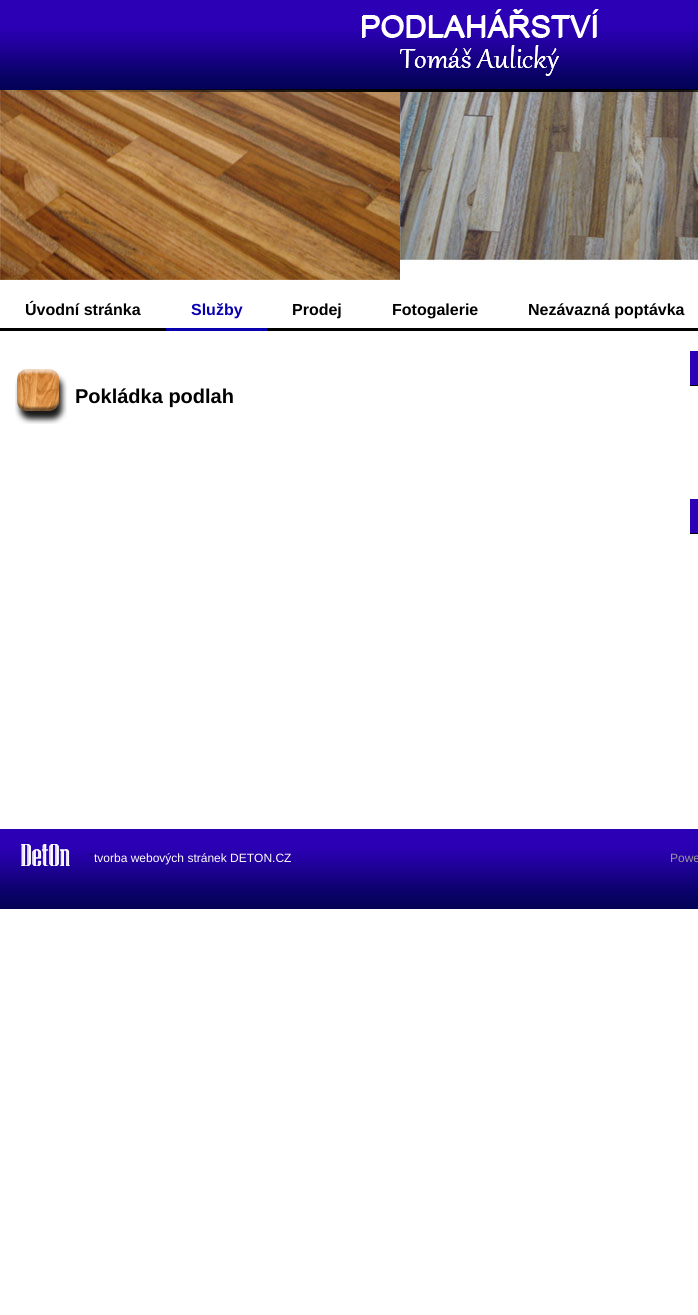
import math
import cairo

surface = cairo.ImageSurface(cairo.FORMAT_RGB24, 698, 1315)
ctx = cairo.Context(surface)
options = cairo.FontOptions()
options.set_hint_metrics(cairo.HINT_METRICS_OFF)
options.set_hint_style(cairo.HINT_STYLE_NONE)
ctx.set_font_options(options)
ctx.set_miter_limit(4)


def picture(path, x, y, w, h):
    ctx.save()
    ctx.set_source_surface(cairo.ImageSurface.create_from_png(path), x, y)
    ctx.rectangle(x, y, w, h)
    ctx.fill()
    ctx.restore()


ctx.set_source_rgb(1, 1, 1)
ctx.paint()
picture("img1.png", 0, 0, 698, 280)
picture("img2.png", 18, 9, 680, 83)
ctx.set_source_rgb(0, 0, 0)
ctx.rectangle(0, 328, 166, 3)
ctx.fill()
ctx.select_font_face("Liberation Sans", cairo.FONT_SLANT_NORMAL, cairo.FONT_WEIGHT_BOLD)
ctx.set_font_size(16)
ctx.move_to(25, 315)
ctx.show_text("Úvodní stránka")
ctx.set_source_rgb(0.035, 0, 0.682)
ctx.rectangle(166, 328, 101, 3)
ctx.fill()
ctx.move_to(191, 315)
ctx.show_text("Služby")
ctx.set_source_rgb(0, 0, 0)
ctx.rectangle(267, 328, 431, 3)
ctx.fill()
ctx.move_to(292, 315)
ctx.show_text("Prodej")
ctx.move_to(392, 315)
ctx.show_text("Fotogalerie")
ctx.move_to(528, 315)
ctx.show_text("Nezávazná poptávka")
picture("img3.png", 15, 369, 52, 55)
ctx.set_font_size(20)
ctx.move_to(75, 403)
ctx.show_text("Pokládka podlah")
ctx.set_source_rgb(0.173, 0, 0.71)
ctx.rectangle(690, 351, 8, 35)
ctx.fill()
ctx.set_source_rgb(0, 0, 0)
ctx.rectangle(690, 385, 8, 1)
ctx.fill()
ctx.set_source_rgb(0.173, 0, 0.71)
ctx.rectangle(690, 499, 8, 35)
ctx.fill()
ctx.set_source_rgb(0, 0, 0)
ctx.rectangle(690, 533, 8, 1)
ctx.fill()
picture("img4.png", 0, 829, 698, 80)
picture("img5.png", 21, 844, 49, 22)
ctx.select_font_face("Liberation Sans")
ctx.set_font_size(12)
ctx.move_to(90, 862)
ctx.show_text("¨")
ctx.set_source_rgb(1, 1, 1)
ctx.move_to(94, 862)
ctx.show_text("tvorba webových stránek DETON.CZ")
ctx.set_source_rgb(0.6, 0.6, 0.6)
ctx.move_to(670, 862)
ctx.show_text("Powe")
surface.write_to_png("page.png")
